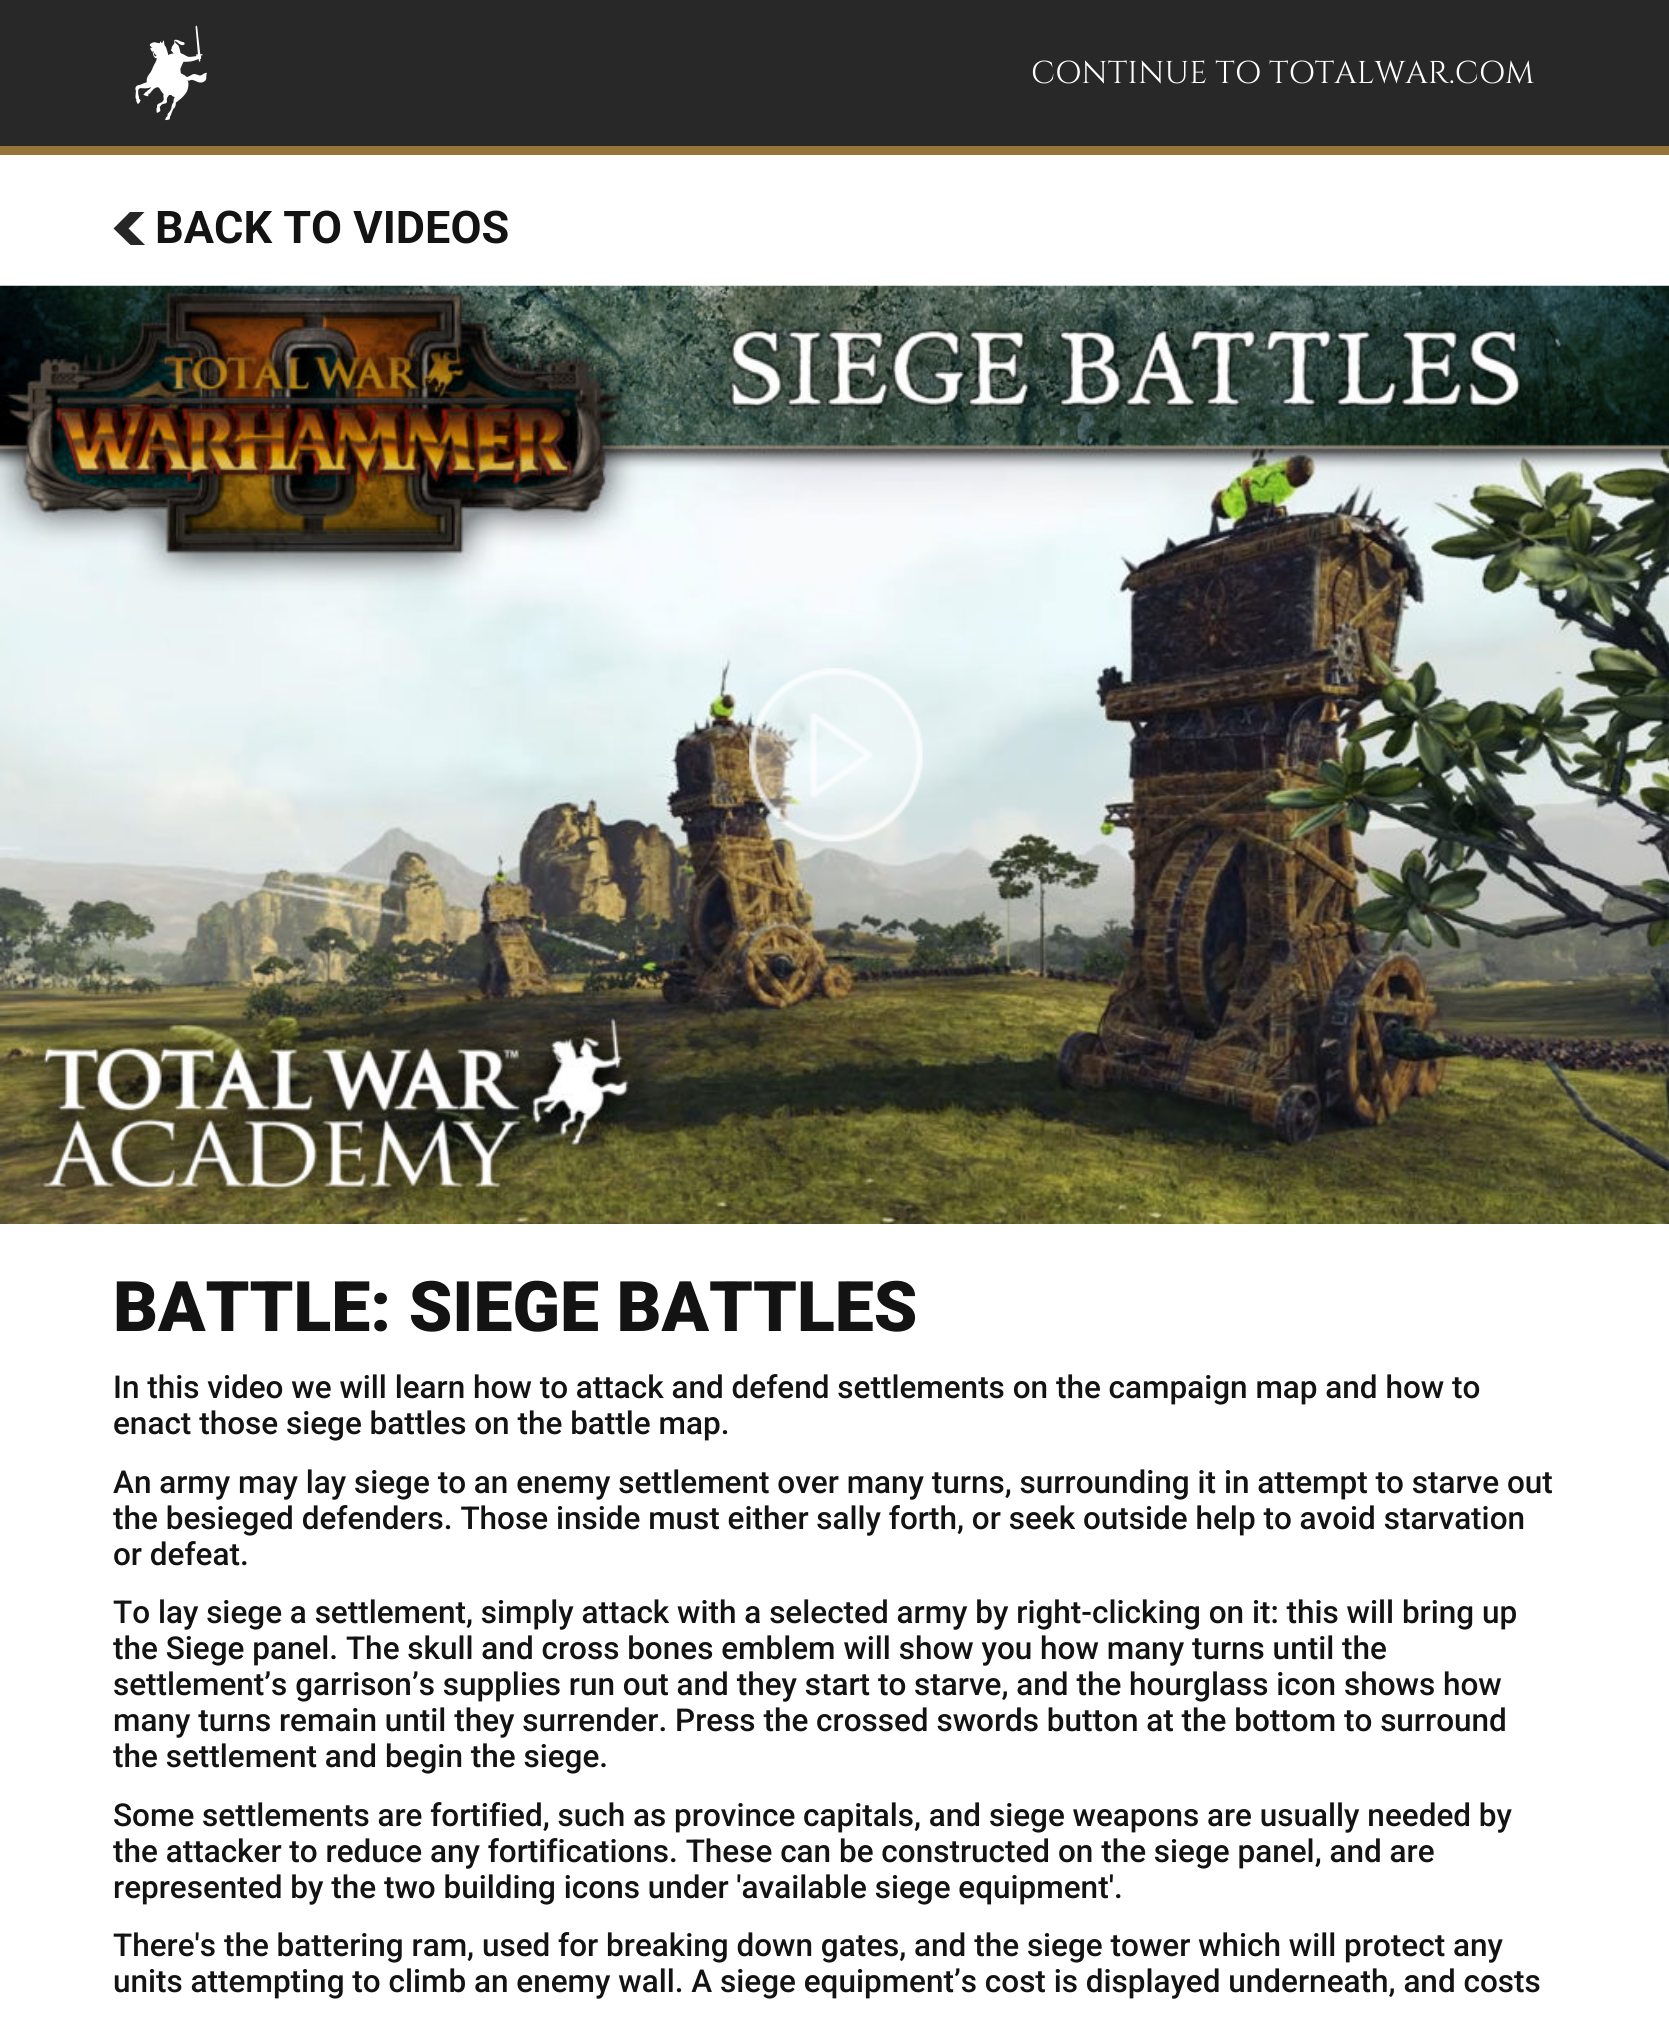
import math
import cairo

surface = cairo.ImageSurface(cairo.FORMAT_RGB24, 1669, 2021)
ctx = cairo.Context(surface)
options = cairo.FontOptions()
options.set_hint_metrics(cairo.HINT_METRICS_OFF)
options.set_hint_style(cairo.HINT_STYLE_NONE)
ctx.set_font_options(options)
ctx.set_miter_limit(4)


def picture(path, x, y, w, h):
    ctx.save()
    ctx.set_source_surface(cairo.ImageSurface.create_from_png(path), x, y)
    ctx.rectangle(x, y, w, h)
    ctx.fill()
    ctx.restore()


ctx.set_source_rgb(1, 1, 1)
ctx.paint()
ctx.set_source_rgb(0.592, 0.455, 0.227)
ctx.rectangle(0, 146, 1669, 9)
ctx.fill()
ctx.set_source_rgb(0.157, 0.157, 0.157)
ctx.rectangle(0, 0, 1669, 146)
ctx.fill()
picture("img1.png", 135, 25, 72, 96)
ctx.select_font_face("Cinzel")
ctx.set_font_size(31.5)
ctx.set_source_rgb(1, 1, 1)
ctx.move_to(1031, 83)
ctx.show_text("CONTINUE TO TOTALWAR.COM")
ctx.save()
ctx.rectangle(113, 212, 33, 33)
ctx.clip()
ctx.set_source_rgb(0.149, 0.149, 0.149)
ctx.set_fill_rule(cairo.FILL_RULE_EVEN_ODD)
ctx.new_path()
ctx.move_to(145, 211.5)
ctx.line_to(130.5, 211.5)
ctx.line_to(113.5, 228.5)
ctx.line_to(130.5, 245)
ctx.line_to(145, 245)
ctx.line_to(128.5, 228.5)
ctx.close_path()
ctx.fill()
ctx.restore()
ctx.select_font_face("Roboto", cairo.FONT_SLANT_NORMAL, cairo.FONT_WEIGHT_BOLD)
ctx.set_font_size(45)
ctx.set_source_rgb(0.075, 0.075, 0.075)
ctx.move_to(155, 243)
ctx.show_text("BACK TO VIDEOS")
picture("img2.png", 0, 285, 1669, 939)
picture("img3.png", 749, 668, 174, 174)
ctx.select_font_face("Roboto Black")
ctx.set_font_size(69.75)
ctx.move_to(113, 1331)
ctx.show_text("BATTLE: SIEGE BATTLES")
ctx.select_font_face("Roboto Medium")
ctx.set_font_size(31.5)
ctx.move_to(113, 1398)
ctx.show_text("In this video we will learn how to attack and defend settlements on the campaign map and how to")
ctx.move_to(113, 1434)
ctx.show_text("enact those siege battles on the battle map.")
ctx.move_to(113, 1493)
ctx.show_text("An army may lay siege to an enemy settlement over many turns, surrounding it in attempt to starve out")
ctx.move_to(113, 1529)
ctx.show_text("the besieged defenders. Those inside must either sally forth, or seek outside help to avoid starvation")
ctx.move_to(113, 1565)
ctx.show_text("or defeat.")
ctx.move_to(113, 1623)
ctx.show_text("To lay siege a settlement, simply attack with a selected army by right-clicking on it: this will bring up")
ctx.move_to(113, 1659)
ctx.show_text("the Siege panel. The skull and cross bones emblem will show you how many turns until the")
ctx.move_to(113, 1695)
ctx.show_text("settlement’s garrison’s supplies run out and they start to starve, and the hourglass icon shows how")
ctx.move_to(113, 1731)
ctx.show_text("many turns remain until they surrender. Press the crossed swords button at the bottom to surround")
ctx.move_to(113, 1767)
ctx.show_text("the settlement and begin the siege.")
ctx.move_to(113, 1826)
ctx.show_text("Some settlements are fortified, such as province capitals, and siege weapons are usually needed by")
ctx.move_to(113, 1862)
ctx.show_text("the attacker to reduce any fortifications. These can be constructed on the siege panel, and are")
ctx.move_to(113, 1898)
ctx.show_text("represented by the two building icons under 'available siege equipment'.")
ctx.move_to(113, 1956)
ctx.show_text("There's the battering ram, used for breaking down gates, and the siege tower which will protect any")
ctx.move_to(113, 1992)
ctx.show_text("units attempting to climb an enemy wall. A siege equipment’s cost is displayed underneath, and costs")
surface.write_to_png("page.png")
